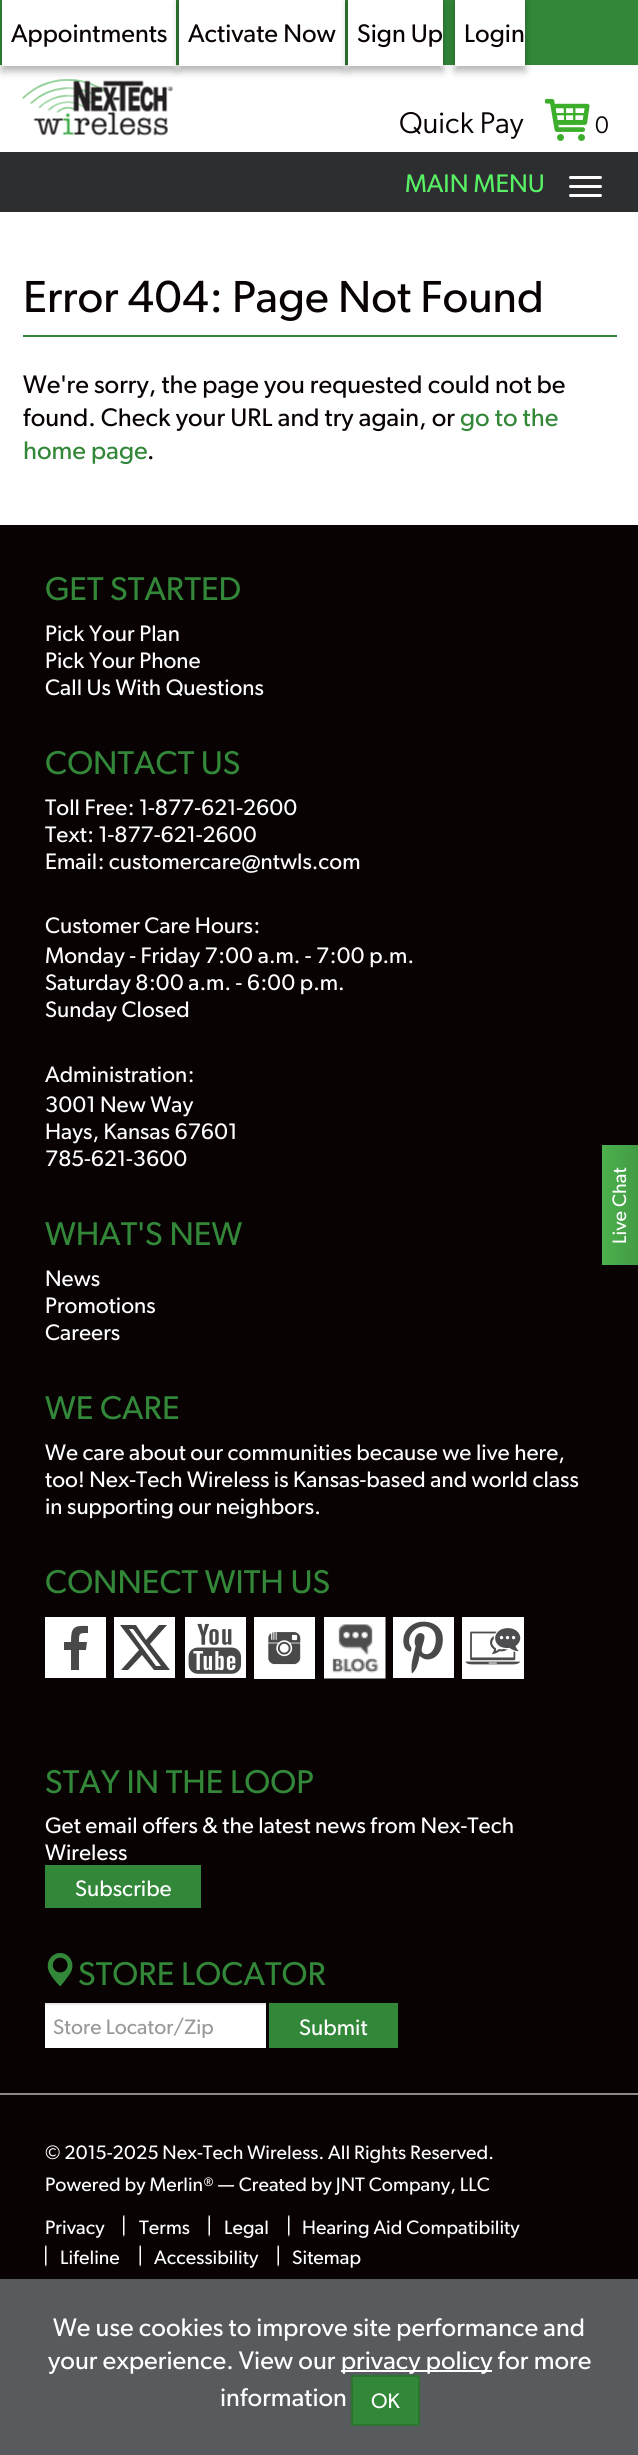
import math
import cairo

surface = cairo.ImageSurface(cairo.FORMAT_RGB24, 638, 2455)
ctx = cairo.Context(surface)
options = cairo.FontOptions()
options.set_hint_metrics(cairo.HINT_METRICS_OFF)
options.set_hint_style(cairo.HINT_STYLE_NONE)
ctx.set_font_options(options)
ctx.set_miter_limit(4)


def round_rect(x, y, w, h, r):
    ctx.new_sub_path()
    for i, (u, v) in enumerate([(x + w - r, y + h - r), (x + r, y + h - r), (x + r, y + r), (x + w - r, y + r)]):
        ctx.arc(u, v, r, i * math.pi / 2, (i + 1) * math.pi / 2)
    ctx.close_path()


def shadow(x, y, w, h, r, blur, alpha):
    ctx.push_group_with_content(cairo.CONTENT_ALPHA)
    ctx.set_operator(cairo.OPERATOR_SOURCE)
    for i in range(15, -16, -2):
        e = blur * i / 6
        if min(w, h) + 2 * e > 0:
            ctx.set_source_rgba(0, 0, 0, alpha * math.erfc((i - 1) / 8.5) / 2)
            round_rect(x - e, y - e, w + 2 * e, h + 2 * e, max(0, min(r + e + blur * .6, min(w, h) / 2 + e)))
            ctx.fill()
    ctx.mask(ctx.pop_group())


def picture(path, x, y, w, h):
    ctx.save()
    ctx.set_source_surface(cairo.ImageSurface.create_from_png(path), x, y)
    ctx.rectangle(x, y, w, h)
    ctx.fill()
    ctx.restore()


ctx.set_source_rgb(1, 1, 1)
ctx.paint()
ctx.set_source_rgb(0.196, 0.529, 0.224)
ctx.rectangle(0, 0, 638, 65)
ctx.fill()
ctx.set_source_rgb(0, 0, 0)
shadow(2, 2, 174, 69, 0, 4, 0.3)
ctx.set_source_rgb(1, 1, 1)
ctx.rectangle(2, 0, 174, 66)
ctx.fill()
ctx.select_font_face("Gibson")
ctx.set_font_size(25.5)
ctx.set_source_rgb(0.039, 0.008, 0.012)
ctx.move_to(11, 42)
ctx.show_text("Appointments")
ctx.set_source_rgb(0, 0, 0)
shadow(179, 2, 166, 69, 0, 4, 0.3)
ctx.set_source_rgb(1, 1, 1)
ctx.rectangle(179, 0, 166, 66)
ctx.fill()
ctx.set_source_rgb(0.039, 0.008, 0.012)
ctx.move_to(188, 42)
ctx.show_text("Activate Now")
ctx.set_source_rgb(0, 0, 0)
shadow(348, 2, 95, 69, 0, 4, 0.3)
ctx.set_source_rgb(1, 1, 1)
ctx.rectangle(348, 0, 95, 66)
ctx.fill()
ctx.set_source_rgb(0.039, 0.008, 0.012)
ctx.move_to(357, 42)
ctx.show_text("Sign Up")
ctx.set_source_rgb(0, 0, 0)
shadow(455, 2, 70, 69, 0, 4, 0.3)
ctx.set_source_rgb(1, 1, 1)
ctx.rectangle(455, 0, 70, 66)
ctx.fill()
ctx.set_source_rgb(0.039, 0.008, 0.012)
ctx.move_to(464, 42)
ctx.show_text("Login")
picture("img1.png", 22, 79, 151, 57)
ctx.select_font_face("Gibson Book")
ctx.set_font_size(30)
ctx.move_to(399, 133)
ctx.show_text("Quick Pay")
picture("img2.png", 545, 98, 45, 43)
ctx.set_font_size(24)
ctx.move_to(595, 133)
ctx.show_text("0")
ctx.set_source_rgb(0.176, 0.18, 0.188)
ctx.rectangle(0, 152, 638, 60)
ctx.fill()
ctx.select_font_face("Gibson")
ctx.set_font_size(25.5)
ctx.set_source_rgb(0.345, 0.945, 0.396)
ctx.move_to(405, 192)
ctx.show_text("MAIN MENU")
ctx.set_source_rgb(1, 1, 1)
round_rect(569, 176, 33, 3, 1.5)
ctx.fill()
round_rect(569, 185, 33, 3, 1.5)
ctx.fill()
round_rect(569, 194, 33, 3, 1.5)
ctx.fill()
ctx.set_source_rgb(0.196, 0.529, 0.224)
ctx.rectangle(23, 335, 594, 2)
ctx.fill()
ctx.set_font_size(45)
ctx.set_source_rgb(0.039, 0.008, 0.012)
ctx.move_to(23, 312)
ctx.show_text("Error 404: Page Not Found")
ctx.set_font_size(25.5)
ctx.move_to(23, 393)
ctx.show_text("We're sorry, the page you requested could not be")
ctx.move_to(23, 426)
ctx.show_text("found. Check your URL and try again, or")
ctx.set_source_rgb(0.196, 0.529, 0.224)
ctx.move_to(460, 426)
ctx.show_text("go to the")
ctx.move_to(23, 459)
ctx.show_text("home page")
ctx.set_source_rgb(0.039, 0.008, 0.012)
ctx.move_to(147, 459)
ctx.show_text(".")
ctx.rectangle(0, 525, 638, 1754)
ctx.fill()
ctx.set_font_size(33)
ctx.set_source_rgb(0.196, 0.529, 0.224)
ctx.move_to(45, 600)
ctx.show_text("GET STARTED")
ctx.set_font_size(22.5)
ctx.set_source_rgb(1, 1, 1)
ctx.move_to(45, 641)
ctx.show_text("Pick Your Plan")
ctx.move_to(45, 668)
ctx.show_text("Pick Your Phone")
ctx.move_to(45, 695)
ctx.show_text("Call Us With Questions")
ctx.set_font_size(33)
ctx.set_source_rgb(0.196, 0.529, 0.224)
ctx.move_to(45, 774)
ctx.show_text("CONTACT US")
ctx.set_font_size(22.5)
ctx.set_source_rgb(1, 1, 1)
ctx.move_to(45, 815)
ctx.show_text("Toll Free: 1-877-621-2600")
ctx.move_to(45, 842)
ctx.show_text("Text: 1-877-621-2600")
ctx.move_to(45, 869)
ctx.show_text("Email: customercare@ntwls.com")
ctx.move_to(45, 933)
ctx.show_text("Customer Care Hours:")
ctx.move_to(45, 963)
ctx.show_text("Monday - Friday 7:00 a.m. - 7:00 p.m.")
ctx.move_to(45, 990)
ctx.show_text("Saturday 8:00 a.m. - 6:00 p.m.")
ctx.move_to(45, 1017)
ctx.show_text("Sunday Closed")
ctx.move_to(45, 1082)
ctx.show_text("Administration:")
ctx.move_to(45, 1112)
ctx.show_text("3001 New Way")
ctx.move_to(45, 1139)
ctx.show_text("Hays, Kansas 67601")
ctx.move_to(45, 1166)
ctx.show_text("785-621-3600")
ctx.set_font_size(33)
ctx.set_source_rgb(0.196, 0.529, 0.224)
ctx.move_to(45, 1245)
ctx.show_text("WHAT'S NEW")
ctx.set_font_size(22.5)
ctx.set_source_rgb(1, 1, 1)
ctx.move_to(45, 1286)
ctx.show_text("News")
ctx.move_to(45, 1313)
ctx.show_text("Promotions")
ctx.move_to(45, 1340)
ctx.show_text("Careers")
ctx.set_font_size(33)
ctx.set_source_rgb(0.196, 0.529, 0.224)
ctx.move_to(45, 1419)
ctx.show_text("WE CARE")
ctx.set_font_size(22.5)
ctx.set_source_rgb(1, 1, 1)
ctx.move_to(45, 1460)
ctx.show_text("We care about our communities because we live here,")
ctx.move_to(45, 1487)
ctx.show_text("too! Nex-Tech Wireless is Kansas-based and world class")
ctx.move_to(45, 1514)
ctx.show_text("in supporting our neighbors.")
ctx.set_font_size(33)
ctx.set_source_rgb(0.196, 0.529, 0.224)
ctx.move_to(45, 1593)
ctx.show_text("CONNECT WITH US")
ctx.set_source_rgb(1, 1, 1)
ctx.rectangle(45, 1617, 61, 61)
ctx.fill()
ctx.set_source_rgb(0.286, 0.286, 0.286)
ctx.new_path()
ctx.move_to(79, 1670)
ctx.line_to(79, 1650)
ctx.line_to(86, 1650)
ctx.line_to(87, 1642)
ctx.line_to(79, 1642)
ctx.curve_to(79, 1633, 79, 1633, 88, 1633)
ctx.line_to(88, 1626)
ctx.curve_to(73, 1625, 71, 1628, 71, 1642)
ctx.line_to(64, 1642)
ctx.line_to(64, 1650)
ctx.line_to(71, 1650)
ctx.line_to(71, 1670)
ctx.close_path()
ctx.fill()
ctx.set_source_rgb(1, 1, 1)
ctx.rectangle(114, 1617, 61, 61)
ctx.fill()
ctx.set_source_rgb(0.259, 0.259, 0.259)
ctx.new_path()
ctx.move_to(159, 1625)
ctx.line_to(167, 1625)
ctx.line_to(150, 1644)
ctx.line_to(170, 1670)
ctx.line_to(154, 1670)
ctx.line_to(142, 1655)
ctx.line_to(128, 1670)
ctx.line_to(121, 1670)
ctx.line_to(139, 1650)
ctx.line_to(120, 1625)
ctx.line_to(136, 1625)
ctx.line_to(146, 1640)
ctx.close_path()
ctx.move_to(156, 1666)
ctx.line_to(161, 1666)
ctx.line_to(133, 1629)
ctx.line_to(129, 1629)
ctx.close_path()
ctx.fill()
picture("img3.png", 185, 1617, 61, 61)
picture("img4.png", 254, 1617, 61, 62)
picture("img5.png", 324, 1617, 62, 62)
picture("img6.png", 393, 1617, 61, 61)
ctx.set_source_rgb(1, 1, 1)
ctx.rectangle(462, 1617, 62, 62)
ctx.fill()
picture("img7.png", 465, 1628, 56, 37)
ctx.set_source_rgb(0.196, 0.529, 0.224)
ctx.move_to(45, 1793)
ctx.show_text("STAY IN THE LOOP")
ctx.set_font_size(22.5)
ctx.set_source_rgb(1, 1, 1)
ctx.move_to(45, 1833)
ctx.show_text("Get email offers & the latest news from Nex-Tech")
ctx.move_to(45, 1860)
ctx.show_text("Wireless")
ctx.set_source_rgb(0.196, 0.529, 0.224)
ctx.rectangle(45, 1865, 156, 43)
ctx.fill()
ctx.set_source_rgb(1, 1, 1)
ctx.move_to(75, 1896)
ctx.show_text("Subscribe")
picture("img8.png", 47, 1953, 26, 34)
ctx.set_font_size(33)
ctx.set_source_rgb(0.196, 0.529, 0.224)
ctx.move_to(78, 1985)
ctx.show_text("STORE LOCATOR")
ctx.set_source_rgb(1, 1, 1)
ctx.rectangle(45, 2005, 221, 43)
ctx.fill()
ctx.set_source_rgb(0.914, 0.914, 0.914)
ctx.rectangle(45, 2003, 221, 2)
ctx.fill()
ctx.set_font_size(21)
ctx.set_source_rgb(0.6, 0.6, 0.6)
ctx.move_to(53, 2034)
ctx.show_text("Store Locator/Zip")
ctx.set_source_rgb(0.196, 0.529, 0.224)
ctx.rectangle(269, 2003, 129, 45)
ctx.fill()
ctx.set_font_size(22.5)
ctx.set_source_rgb(1, 1, 1)
ctx.move_to(299, 2035)
ctx.show_text("Submit")
ctx.set_source_rgb(0.553, 0.537, 0.537)
ctx.rectangle(0, 2093, 638, 2)
ctx.fill()
ctx.set_font_size(19.5)
ctx.set_source_rgb(1, 1, 1)
ctx.move_to(45, 2159)
ctx.show_text("© 2015-2025 Nex-Tech Wireless. All Rights Reserved.")
ctx.move_to(45, 2191)
ctx.show_text("Powered by Merlin® — Created by JNT Company, LLC")
ctx.move_to(45, 2234)
ctx.show_text("Privacy")
picture("img9.png", 123, 2215, 2, 22)
ctx.move_to(139, 2234)
ctx.show_text("Terms")
picture("img10.png", 208, 2215, 2, 22)
ctx.move_to(224, 2234)
ctx.show_text("Legal")
picture("img9.png", 288, 2215, 2, 22)
ctx.move_to(302, 2234)
ctx.show_text("Hearing Aid Compatibility")
picture("img9.png", 45, 2245, 2, 22)
ctx.move_to(60, 2264)
ctx.show_text("Lifeline")
picture("img10.png", 139, 2245, 2, 22)
ctx.move_to(154, 2264)
ctx.show_text("Accessibility")
picture("img10.png", 277, 2245, 2, 22)
ctx.move_to(292, 2264)
ctx.show_text("Sitemap")
gradient = cairo.LinearGradient(602, 1205, 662, 1205)
gradient.add_color_stop_rgba(0, 0.294, 0.694, 0.302, 1)
gradient.add_color_stop_rgba(1, 0.235, 0.553, 0.239, 1)
ctx.set_source(gradient)
ctx.rectangle(602, 1145, 36, 120)
ctx.fill()
ctx.set_source_rgb(1, 1, 1)
ctx.save()
ctx.translate(626, 1244)
ctx.rotate(-90 * math.pi / 180)
ctx.move_to(0, 0)
ctx.show_text("Live Chat")
ctx.restore()
ctx.set_source_rgb(0.341, 0.357, 0.365)
ctx.rectangle(0, 2279, 638, 176)
ctx.fill()
ctx.set_font_size(25.5)
ctx.set_source_rgb(1, 1, 1)
ctx.move_to(53, 2336)
ctx.show_text("We use cookies to improve site performance and")
ctx.move_to(48, 2369)
ctx.show_text("your experience. View our")
ctx.rectangle(341, 2370, 151, 2)
ctx.fill()
ctx.move_to(341, 2369)
ctx.show_text("privacy policy for more")
ctx.move_to(220, 2406)
ctx.show_text("information")
ctx.set_source_rgb(0.196, 0.529, 0.224)
ctx.rectangle(352, 2376, 67, 49)
ctx.fill_preserve()
ctx.set_source_rgb(0.169, 0.455, 0.192)
ctx.stroke()
ctx.set_font_size(21)
ctx.set_source_rgb(1, 1, 1)
ctx.move_to(371, 2408)
ctx.show_text("OK")
surface.write_to_png("page.png")
